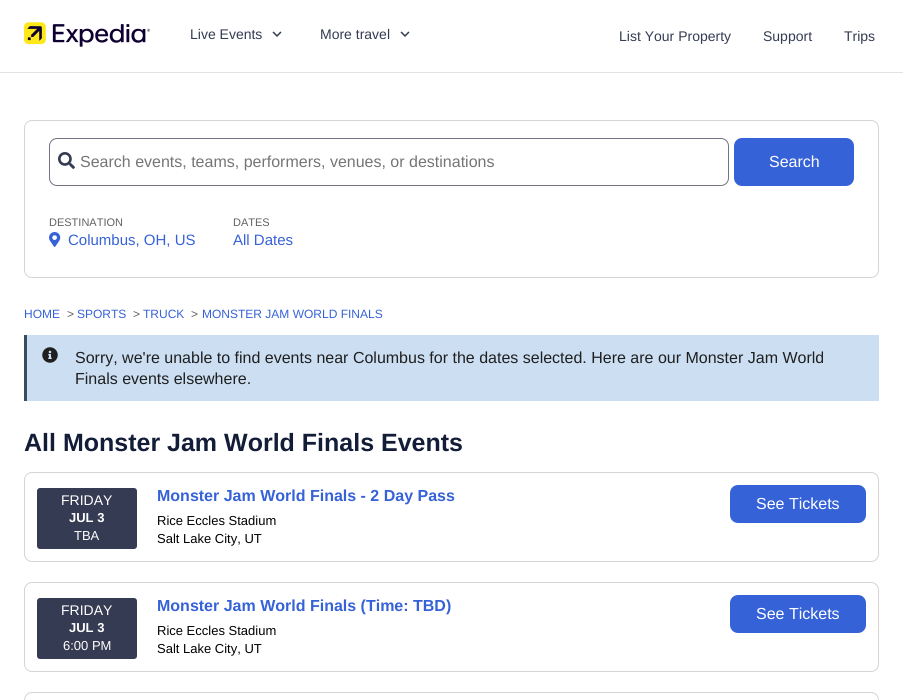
import math
import cairo

surface = cairo.ImageSurface(cairo.FORMAT_RGB24, 903, 700)
ctx = cairo.Context(surface)
options = cairo.FontOptions()
options.set_hint_metrics(cairo.HINT_METRICS_OFF)
options.set_hint_style(cairo.HINT_STYLE_NONE)
ctx.set_font_options(options)
ctx.set_miter_limit(4)


def round_rect(x, y, w, h, r):
    ctx.new_sub_path()
    for i, (u, v) in enumerate([(x + w - r, y + h - r), (x + r, y + h - r), (x + r, y + r), (x + w - r, y + r)]):
        ctx.arc(u, v, r, i * math.pi / 2, (i + 1) * math.pi / 2)
    ctx.close_path()


def picture(path, x, y, w, h):
    ctx.save()
    ctx.set_source_surface(cairo.ImageSurface.create_from_png(path), x, y)
    ctx.rectangle(x, y, w, h)
    ctx.fill()
    ctx.restore()


ctx.set_source_rgb(1, 1, 1)
ctx.paint()
ctx.set_source_rgb(0.878, 0.886, 0.898)
ctx.rectangle(0, 72, 903, 1)
ctx.fill()
picture("img1.png", 24, 22, 126, 25)
ctx.select_font_face("Liberation Sans")
ctx.set_font_size(14)
ctx.set_source_rgb(0.204, 0.231, 0.325)
ctx.move_to(190, 39)
ctx.show_text("Live Events")
picture("img2.png", 272, 31, 10, 6)
ctx.move_to(320, 39)
ctx.show_text("More travel")
picture("img2.png", 400, 31, 10, 6)
ctx.move_to(619, 41)
ctx.show_text("List Your Property")
ctx.move_to(763, 41)
ctx.show_text("Support")
ctx.move_to(844, 41)
ctx.show_text("Trips")
round_rect(24.5, 120.5, 854, 157, 7.5)
ctx.set_source_rgb(0.843, 0.831, 0.824)
ctx.set_line_width(1)
ctx.stroke()
round_rect(49.5, 138.5, 679, 47, 7.5)
ctx.set_source_rgb(0.447, 0.455, 0.514)
ctx.stroke()
picture("img3.png", 58, 152, 17, 17)
ctx.set_font_size(16)
ctx.set_source_rgb(0.459, 0.459, 0.459)
ctx.move_to(80, 167)
ctx.show_text("Search events, teams, performers, venues, or destinations")
ctx.set_source_rgb(0.212, 0.384, 0.847)
round_rect(734, 138, 120, 48, 8)
ctx.fill()
ctx.set_source_rgb(1, 1, 1)
ctx.move_to(769, 167)
ctx.show_text("Search")
ctx.set_font_size(11)
ctx.set_source_rgb(0.38, 0.38, 0.38)
ctx.move_to(49, 226)
ctx.show_text("DESTINATION")
picture("img4.png", 49, 232, 12, 15)
ctx.set_font_size(15)
ctx.set_source_rgb(0.212, 0.384, 0.847)
ctx.move_to(68, 245)
ctx.show_text("Columbus, OH, US")
ctx.set_font_size(11)
ctx.set_source_rgb(0.38, 0.38, 0.38)
ctx.move_to(233, 226)
ctx.show_text("DATES")
ctx.set_font_size(15)
ctx.set_source_rgb(0.212, 0.384, 0.847)
ctx.move_to(233, 245)
ctx.show_text("All Dates")
ctx.set_font_size(12)
ctx.move_to(24, 318)
ctx.show_text("HOME")
ctx.set_source_rgb(0.38, 0.38, 0.38)
ctx.move_to(67, 318)
ctx.show_text(">")
ctx.set_source_rgb(0.212, 0.384, 0.847)
ctx.move_to(77, 318)
ctx.show_text("SPORTS")
ctx.set_source_rgb(0.38, 0.38, 0.38)
ctx.move_to(133, 318)
ctx.show_text(">")
ctx.set_source_rgb(0.212, 0.384, 0.847)
ctx.move_to(143, 318)
ctx.show_text("TRUCK")
ctx.set_source_rgb(0.38, 0.38, 0.38)
ctx.move_to(191, 318)
ctx.show_text(">")
ctx.set_source_rgb(0.212, 0.384, 0.847)
ctx.move_to(202, 318)
ctx.show_text("MONSTER JAM WORLD FINALS")
ctx.set_source_rgb(0.796, 0.871, 0.949)
ctx.rectangle(27, 335, 852, 66)
ctx.fill()
ctx.set_source_rgb(0.231, 0.298, 0.357)
ctx.rectangle(24, 335, 3, 66)
ctx.fill()
picture("img5.png", 42, 347, 16, 16)
ctx.set_font_size(16)
ctx.set_source_rgb(0.122, 0.122, 0.122)
ctx.move_to(75, 363)
ctx.show_text("Sorry, we're unable to find events near Columbus for the dates selected. Here are our Monster Jam World")
ctx.move_to(75, 384)
ctx.show_text("Finals events elsewhere.")
ctx.select_font_face("Liberation Sans", cairo.FONT_SLANT_NORMAL, cairo.FONT_WEIGHT_BOLD)
ctx.set_font_size(25)
ctx.set_source_rgb(0.078, 0.114, 0.22)
ctx.move_to(24, 451)
ctx.show_text("All Monster Jam World Finals Events")
round_rect(24.5, 472.5, 854, 89, 7.5)
ctx.set_source_rgb(0.843, 0.831, 0.824)
ctx.stroke()
ctx.set_source_rgb(0.204, 0.231, 0.325)
round_rect(37, 488, 100, 61, 3)
ctx.fill()
ctx.select_font_face("Liberation Sans")
ctx.set_font_size(14)
ctx.set_source_rgb(1, 1, 1)
ctx.move_to(61, 505)
ctx.show_text("FRIDAY")
ctx.select_font_face("Liberation Sans", cairo.FONT_SLANT_NORMAL, cairo.FONT_WEIGHT_BOLD)
ctx.set_font_size(13)
ctx.move_to(69, 522)
ctx.show_text("JUL 3")
ctx.select_font_face("Liberation Sans")
ctx.move_to(74, 540)
ctx.show_text("TBA")
ctx.select_font_face("Liberation Sans", cairo.FONT_SLANT_NORMAL, cairo.FONT_WEIGHT_BOLD)
ctx.set_font_size(16)
ctx.set_source_rgb(0.212, 0.384, 0.847)
ctx.move_to(157, 501)
ctx.show_text("Monster Jam World Finals - 2 Day Pass")
ctx.select_font_face("Liberation Sans")
ctx.set_font_size(13)
ctx.set_source_rgb(0, 0, 0)
ctx.move_to(157, 525)
ctx.show_text("Rice Eccles Stadium")
ctx.move_to(157, 543)
ctx.show_text("Salt Lake City, UT")
ctx.set_source_rgb(0.212, 0.384, 0.847)
round_rect(730, 485, 136, 38, 8)
ctx.fill()
ctx.set_font_size(16)
ctx.set_source_rgb(1, 1, 1)
ctx.move_to(756, 509)
ctx.show_text("See Tickets")
round_rect(24.5, 582.5, 854, 89, 7.5)
ctx.set_source_rgb(0.843, 0.831, 0.824)
ctx.stroke()
ctx.set_source_rgb(0.204, 0.231, 0.325)
round_rect(37, 598, 100, 61, 3)
ctx.fill()
ctx.set_font_size(14)
ctx.set_source_rgb(1, 1, 1)
ctx.move_to(61, 615)
ctx.show_text("FRIDAY")
ctx.select_font_face("Liberation Sans", cairo.FONT_SLANT_NORMAL, cairo.FONT_WEIGHT_BOLD)
ctx.set_font_size(13)
ctx.move_to(69, 632)
ctx.show_text("JUL 3")
ctx.select_font_face("Liberation Sans")
ctx.move_to(63, 650)
ctx.show_text("6:00 PM")
ctx.select_font_face("Liberation Sans", cairo.FONT_SLANT_NORMAL, cairo.FONT_WEIGHT_BOLD)
ctx.set_font_size(16)
ctx.set_source_rgb(0.212, 0.384, 0.847)
ctx.move_to(157, 611)
ctx.show_text("Monster Jam World Finals (Time: TBD)")
ctx.select_font_face("Liberation Sans")
ctx.set_font_size(13)
ctx.set_source_rgb(0, 0, 0)
ctx.move_to(157, 635)
ctx.show_text("Rice Eccles Stadium")
ctx.move_to(157, 653)
ctx.show_text("Salt Lake City, UT")
ctx.set_source_rgb(0.212, 0.384, 0.847)
round_rect(730, 595, 136, 38, 8)
ctx.fill()
ctx.set_font_size(16)
ctx.set_source_rgb(1, 1, 1)
ctx.move_to(756, 619)
ctx.show_text("See Tickets")
round_rect(24.5, 692.5, 854, 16, 7.5)
ctx.set_source_rgb(0.843, 0.831, 0.824)
ctx.stroke()
surface.write_to_png("page.png")
